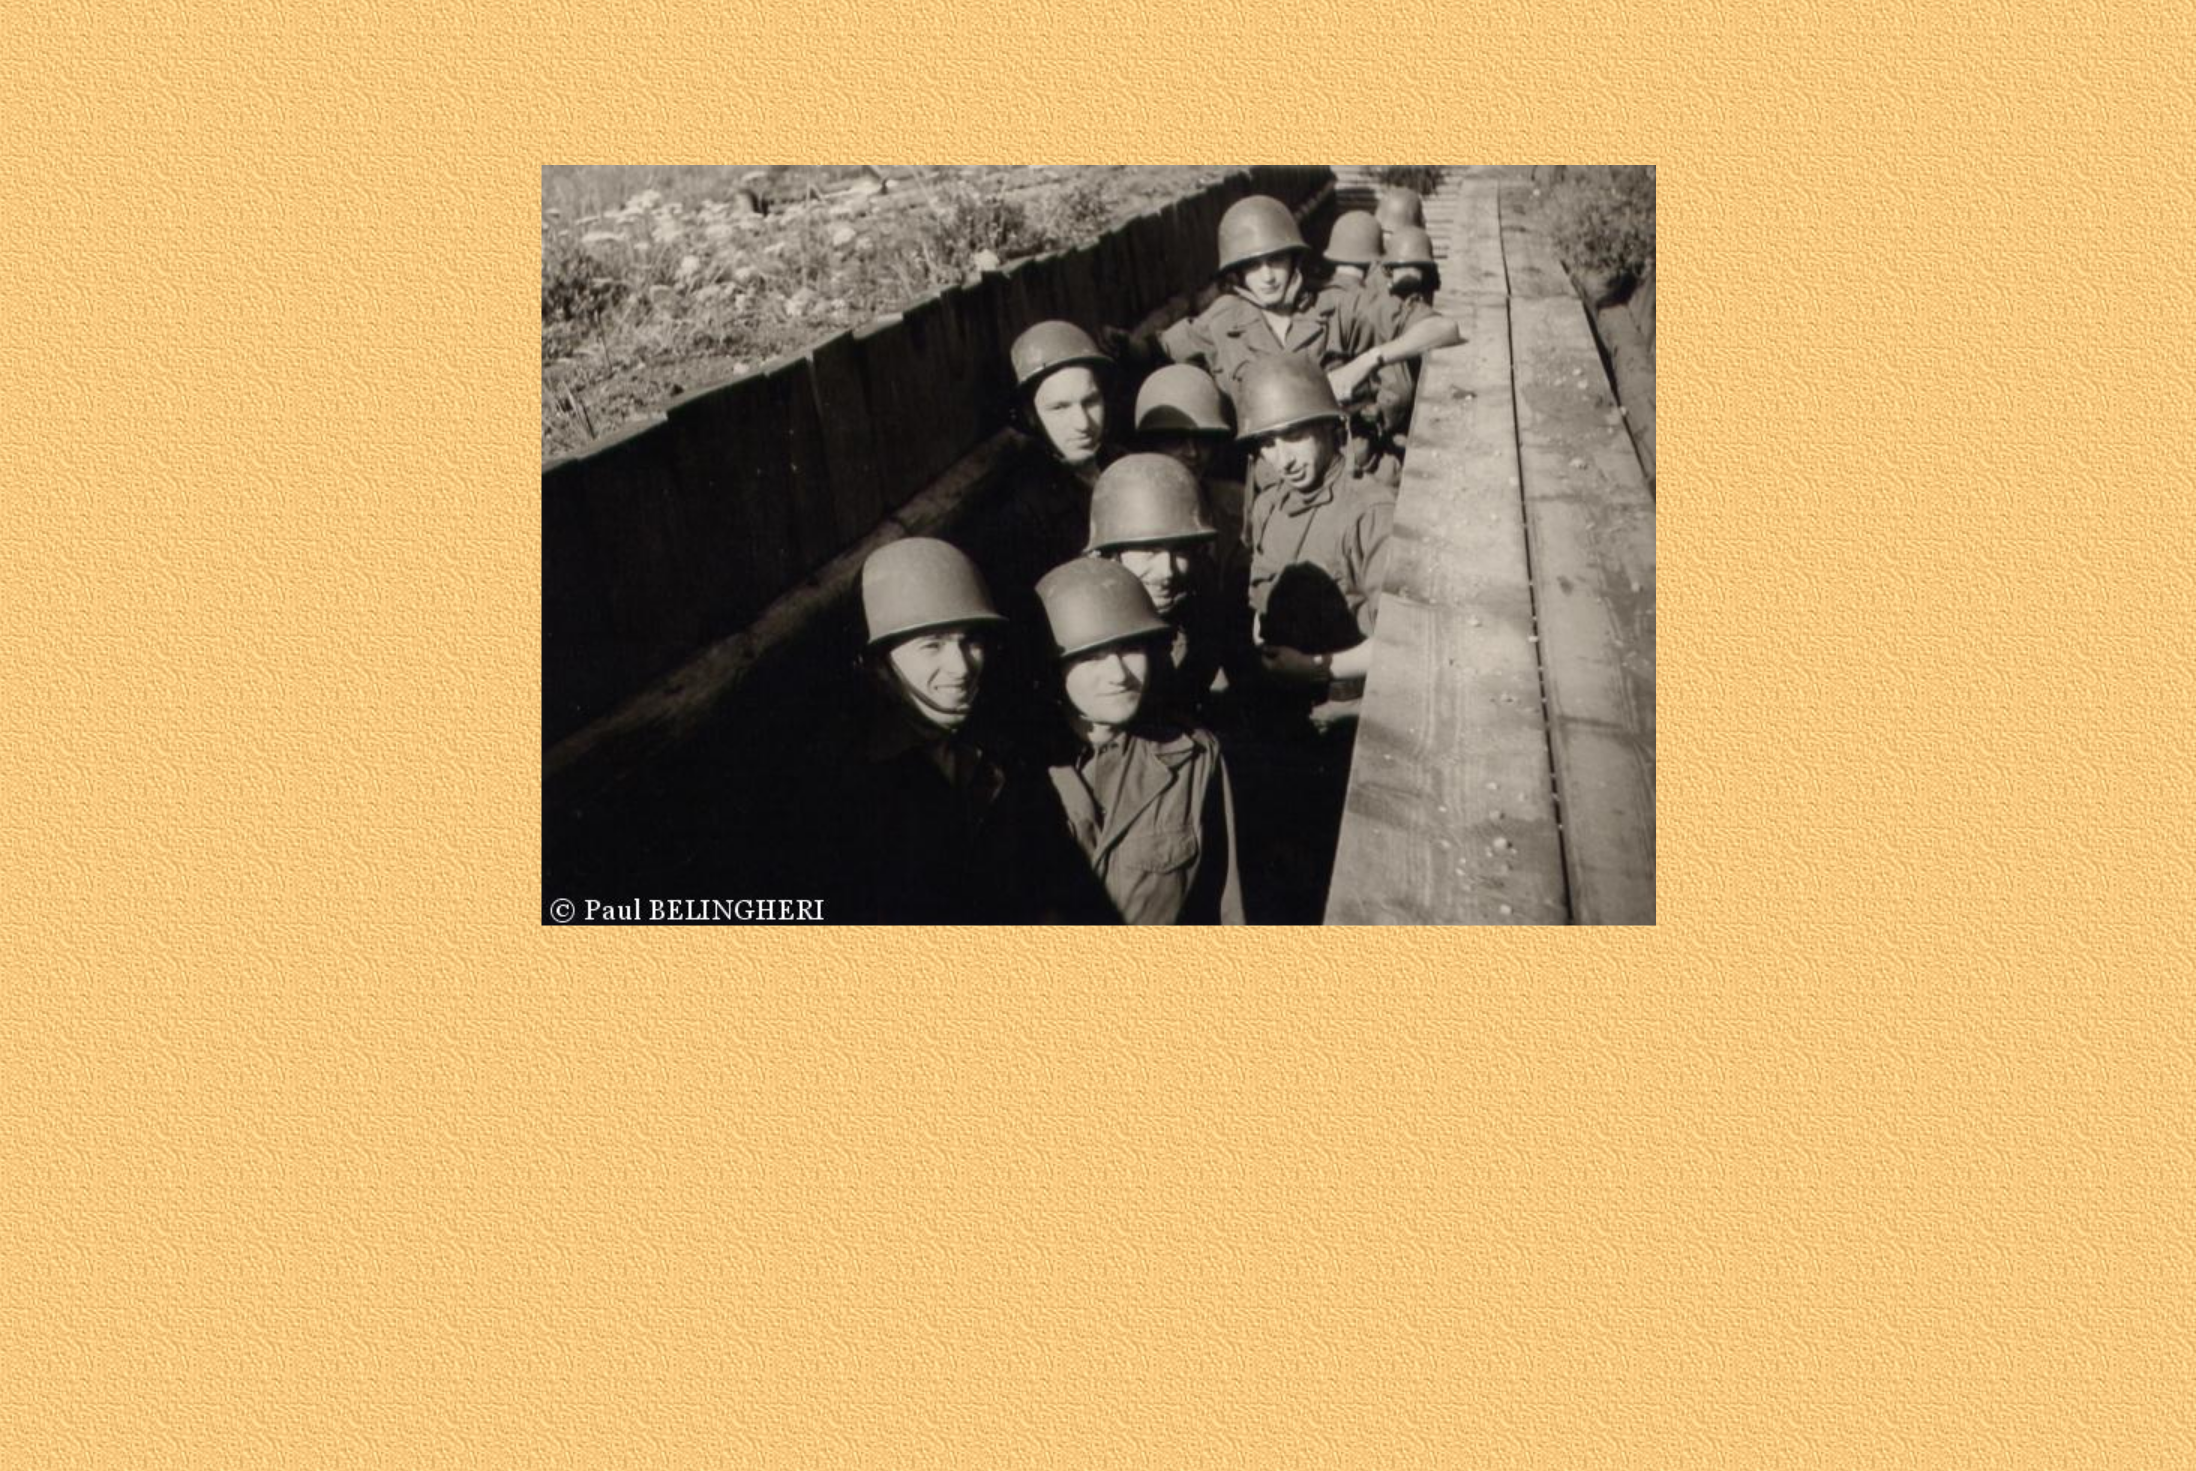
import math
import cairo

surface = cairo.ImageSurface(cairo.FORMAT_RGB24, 2196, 1471)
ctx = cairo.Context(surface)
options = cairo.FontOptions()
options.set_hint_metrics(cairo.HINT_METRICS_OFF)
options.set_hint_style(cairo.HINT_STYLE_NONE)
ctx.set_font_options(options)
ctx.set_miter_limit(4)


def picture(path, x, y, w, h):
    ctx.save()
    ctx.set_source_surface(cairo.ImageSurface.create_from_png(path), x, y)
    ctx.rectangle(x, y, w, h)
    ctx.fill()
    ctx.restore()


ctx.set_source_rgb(1, 1, 1)
ctx.paint()
picture("img1.png", 0, 0, 2196, 1471)
picture("img2.png", 541, 165, 1115, 761)
surface.write_to_png("page.png")
